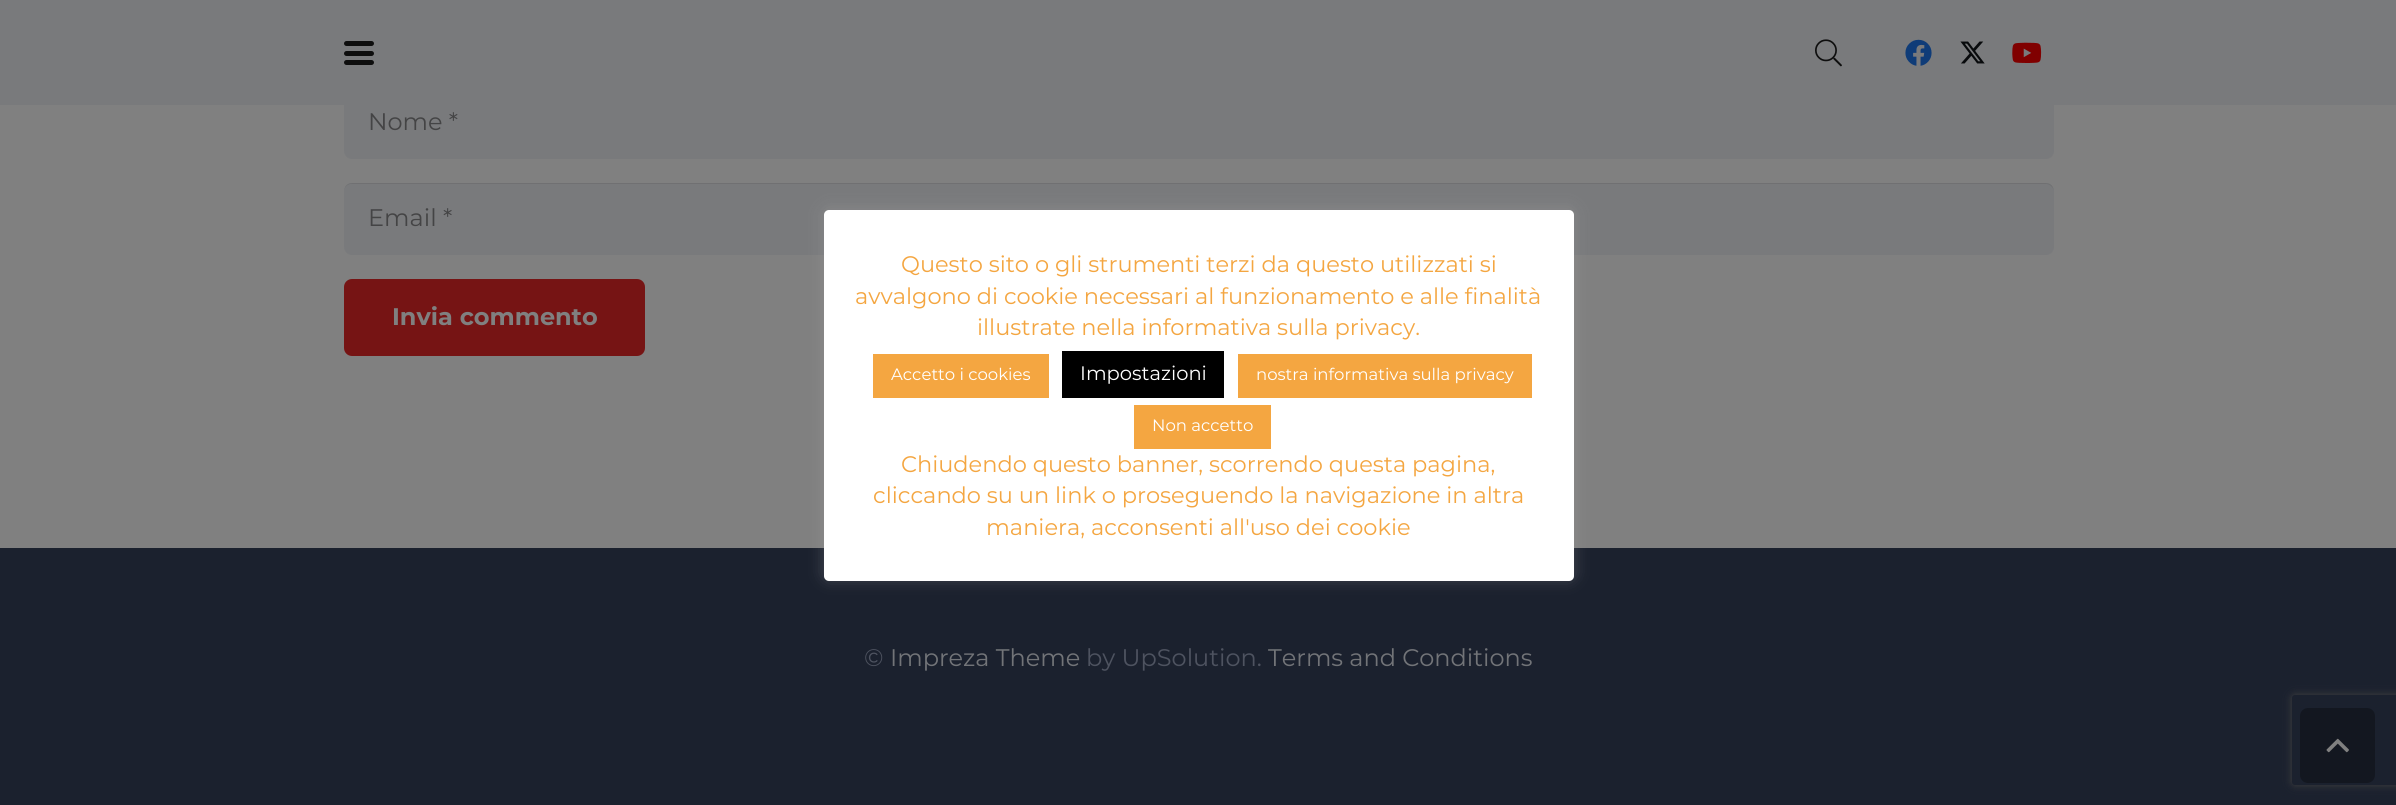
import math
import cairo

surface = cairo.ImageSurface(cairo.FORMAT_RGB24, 2396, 805)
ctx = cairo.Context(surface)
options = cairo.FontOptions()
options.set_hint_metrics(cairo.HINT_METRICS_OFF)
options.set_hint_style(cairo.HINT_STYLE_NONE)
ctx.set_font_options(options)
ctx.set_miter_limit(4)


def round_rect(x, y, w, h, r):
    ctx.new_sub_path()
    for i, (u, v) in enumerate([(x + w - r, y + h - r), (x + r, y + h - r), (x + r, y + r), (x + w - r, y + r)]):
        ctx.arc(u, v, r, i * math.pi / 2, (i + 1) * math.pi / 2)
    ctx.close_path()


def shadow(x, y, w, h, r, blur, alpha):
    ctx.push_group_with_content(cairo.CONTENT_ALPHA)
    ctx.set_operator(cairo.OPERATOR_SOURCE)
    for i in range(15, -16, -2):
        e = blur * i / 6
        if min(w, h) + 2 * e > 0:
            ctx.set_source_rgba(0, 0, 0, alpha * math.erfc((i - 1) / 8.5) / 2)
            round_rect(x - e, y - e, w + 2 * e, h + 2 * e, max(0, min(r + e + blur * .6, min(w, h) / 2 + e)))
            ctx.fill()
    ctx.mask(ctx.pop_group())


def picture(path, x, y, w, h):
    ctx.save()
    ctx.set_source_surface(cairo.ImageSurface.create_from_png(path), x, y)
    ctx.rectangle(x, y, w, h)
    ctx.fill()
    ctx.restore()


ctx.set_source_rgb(0.502, 0.502, 0.502)
ctx.paint()
ctx.set_source_rgb(0.475, 0.478, 0.486)
round_rect(344, 87, 1710, 72, 8)
ctx.fill()
ctx.rectangle(0, 0, 2396, 105)
ctx.fill()
ctx.set_source_rgb(0.055, 0.055, 0.055)
round_rect(344, 51, 30, 5, 2.5)
ctx.fill()
round_rect(344, 41, 30, 5, 2.5)
ctx.fill()
round_rect(344, 60, 30, 5, 2.5)
ctx.fill()
picture("img1.png", 1815, 39, 27, 28)
picture("img2.png", 1905, 39, 27, 27)
picture("img3.png", 1960, 41, 25, 23)
picture("img4.png", 2012, 42, 30, 21)
ctx.select_font_face("Montserrat")
ctx.set_font_size(24)
ctx.set_source_rgb(0.267, 0.267, 0.271)
ctx.move_to(368, 130)
ctx.show_text("Nome *")
ctx.set_source_rgb(0.475, 0.478, 0.486)
round_rect(344, 183, 1710, 72, 8)
ctx.fill()
ctx.set_source_rgba(0, 0, 0, 0.08)
ctx.new_path()
ctx.move_to(351, 184)
ctx.line_to(2046, 184)
ctx.curve_to(2050, 184, 2054, 188, 2054, 192)
ctx.curve_to(2054, 187, 2051, 183, 2046, 183)
ctx.line_to(352, 183)
ctx.curve_to(347, 183, 344, 187, 344, 192)
ctx.curve_to(344, 188, 347, 184, 351, 184)
ctx.close_path()
ctx.fill()
ctx.set_source_rgb(0.267, 0.267, 0.271)
ctx.move_to(368, 226)
ctx.show_text("Email *")
ctx.set_source_rgb(0.463, 0.082, 0.082)
round_rect(344, 279, 301, 77, 8)
ctx.fill()
ctx.select_font_face("Montserrat", cairo.FONT_SLANT_NORMAL, cairo.FONT_WEIGHT_BOLD)
ctx.set_source_rgb(0.502, 0.502, 0.502)
ctx.move_to(392, 325)
ctx.show_text("Invia commento")
ctx.set_source_rgb(0.106, 0.129, 0.18)
ctx.rectangle(0, 548, 2396, 257)
ctx.fill()
ctx.set_source_rgb(0.675, 0.671, 0.671)
shadow(824, 209, 750, 370, 5, 7.5, 0.3)
ctx.set_source_rgb(1, 1, 1)
round_rect(824, 210, 750, 371, 5)
ctx.fill()
ctx.select_font_face("Montserrat")
ctx.set_font_size(22.5)
ctx.set_source_rgb(0.957, 0.651, 0.255)
ctx.move_to(901, 272)
ctx.show_text("Questo sito o gli strumenti terzi da questo utilizzati si")
ctx.move_to(855, 304)
ctx.show_text("avvalgono di cookie necessari al funzionamento e alle finalità")
ctx.move_to(977, 335)
ctx.show_text("illustrate nella informativa sulla privacy.")
ctx.rectangle(873, 354, 176, 44)
ctx.fill()
ctx.set_font_size(16.5)
ctx.set_source_rgb(1, 1, 1)
ctx.move_to(891, 380)
ctx.show_text("Accetto i cookies")
ctx.set_source_rgb(0, 0, 0)
ctx.rectangle(1062, 351, 162, 47)
ctx.fill()
ctx.set_font_size(19.5)
ctx.set_source_rgb(1, 1, 1)
ctx.move_to(1080, 380)
ctx.show_text("Impostazioni")
ctx.set_source_rgb(0.957, 0.651, 0.255)
ctx.rectangle(1238, 354, 294, 44)
ctx.fill()
ctx.set_font_size(16.5)
ctx.set_source_rgb(1, 1, 1)
ctx.move_to(1256, 380)
ctx.show_text("nostra informativa sulla privacy")
ctx.set_source_rgb(0.957, 0.651, 0.255)
ctx.rectangle(1134, 405, 137, 44)
ctx.fill()
ctx.set_source_rgb(1, 1, 1)
ctx.move_to(1152, 431)
ctx.show_text("Non accetto")
ctx.set_font_size(22.5)
ctx.set_source_rgb(0.957, 0.651, 0.255)
ctx.move_to(901, 472)
ctx.show_text("Chiudendo questo banner, scorrendo questa pagina,")
ctx.move_to(873, 503)
ctx.show_text("cliccando su un link o proseguendo la navigazione in altra")
ctx.move_to(986, 535)
ctx.show_text("maniera, acconsenti all'uso dei cookie")
ctx.set_font_size(24)
ctx.set_source_rgb(0.306, 0.325, 0.376)
ctx.move_to(864, 666)
ctx.show_text("©")
ctx.set_source_rgb(0.447, 0.455, 0.471)
ctx.move_to(890, 666)
ctx.show_text("Impreza Theme")
ctx.set_source_rgb(0.306, 0.325, 0.376)
ctx.move_to(1086, 666)
ctx.show_text("by UpSolution.")
ctx.set_source_rgb(0.447, 0.455, 0.471)
ctx.move_to(1268, 666)
ctx.show_text("Terms and Conditions")
ctx.save()
ctx.set_fill_rule(cairo.FILL_RULE_EVEN_ODD)
ctx.new_path()
ctx.move_to(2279, 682)
ctx.line_to(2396, 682)
ctx.line_to(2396, 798)
ctx.line_to(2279, 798)
ctx.close_path()
ctx.move_to(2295, 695)
ctx.line_to(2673, 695)
ctx.curve_to(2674.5, 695, 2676, 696.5, 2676, 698)
ctx.line_to(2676, 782)
ctx.curve_to(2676, 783.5, 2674.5, 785, 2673, 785)
ctx.line_to(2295, 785)
ctx.curve_to(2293.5, 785, 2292, 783.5, 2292, 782)
ctx.line_to(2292, 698)
ctx.curve_to(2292, 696.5, 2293.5, 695, 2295, 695)
ctx.close_path()
ctx.clip()
ctx.set_source_rgb(0.251, 0.251, 0.251)
shadow(2292, 695, 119, 90, 3, 4, 1)
ctx.restore()
ctx.set_source_rgb(0.075, 0.09, 0.125)
round_rect(2300, 708, 75, 75, 8)
ctx.fill()
picture("img5.png", 2326, 738, 23, 15)
surface.write_to_png("page.png")
